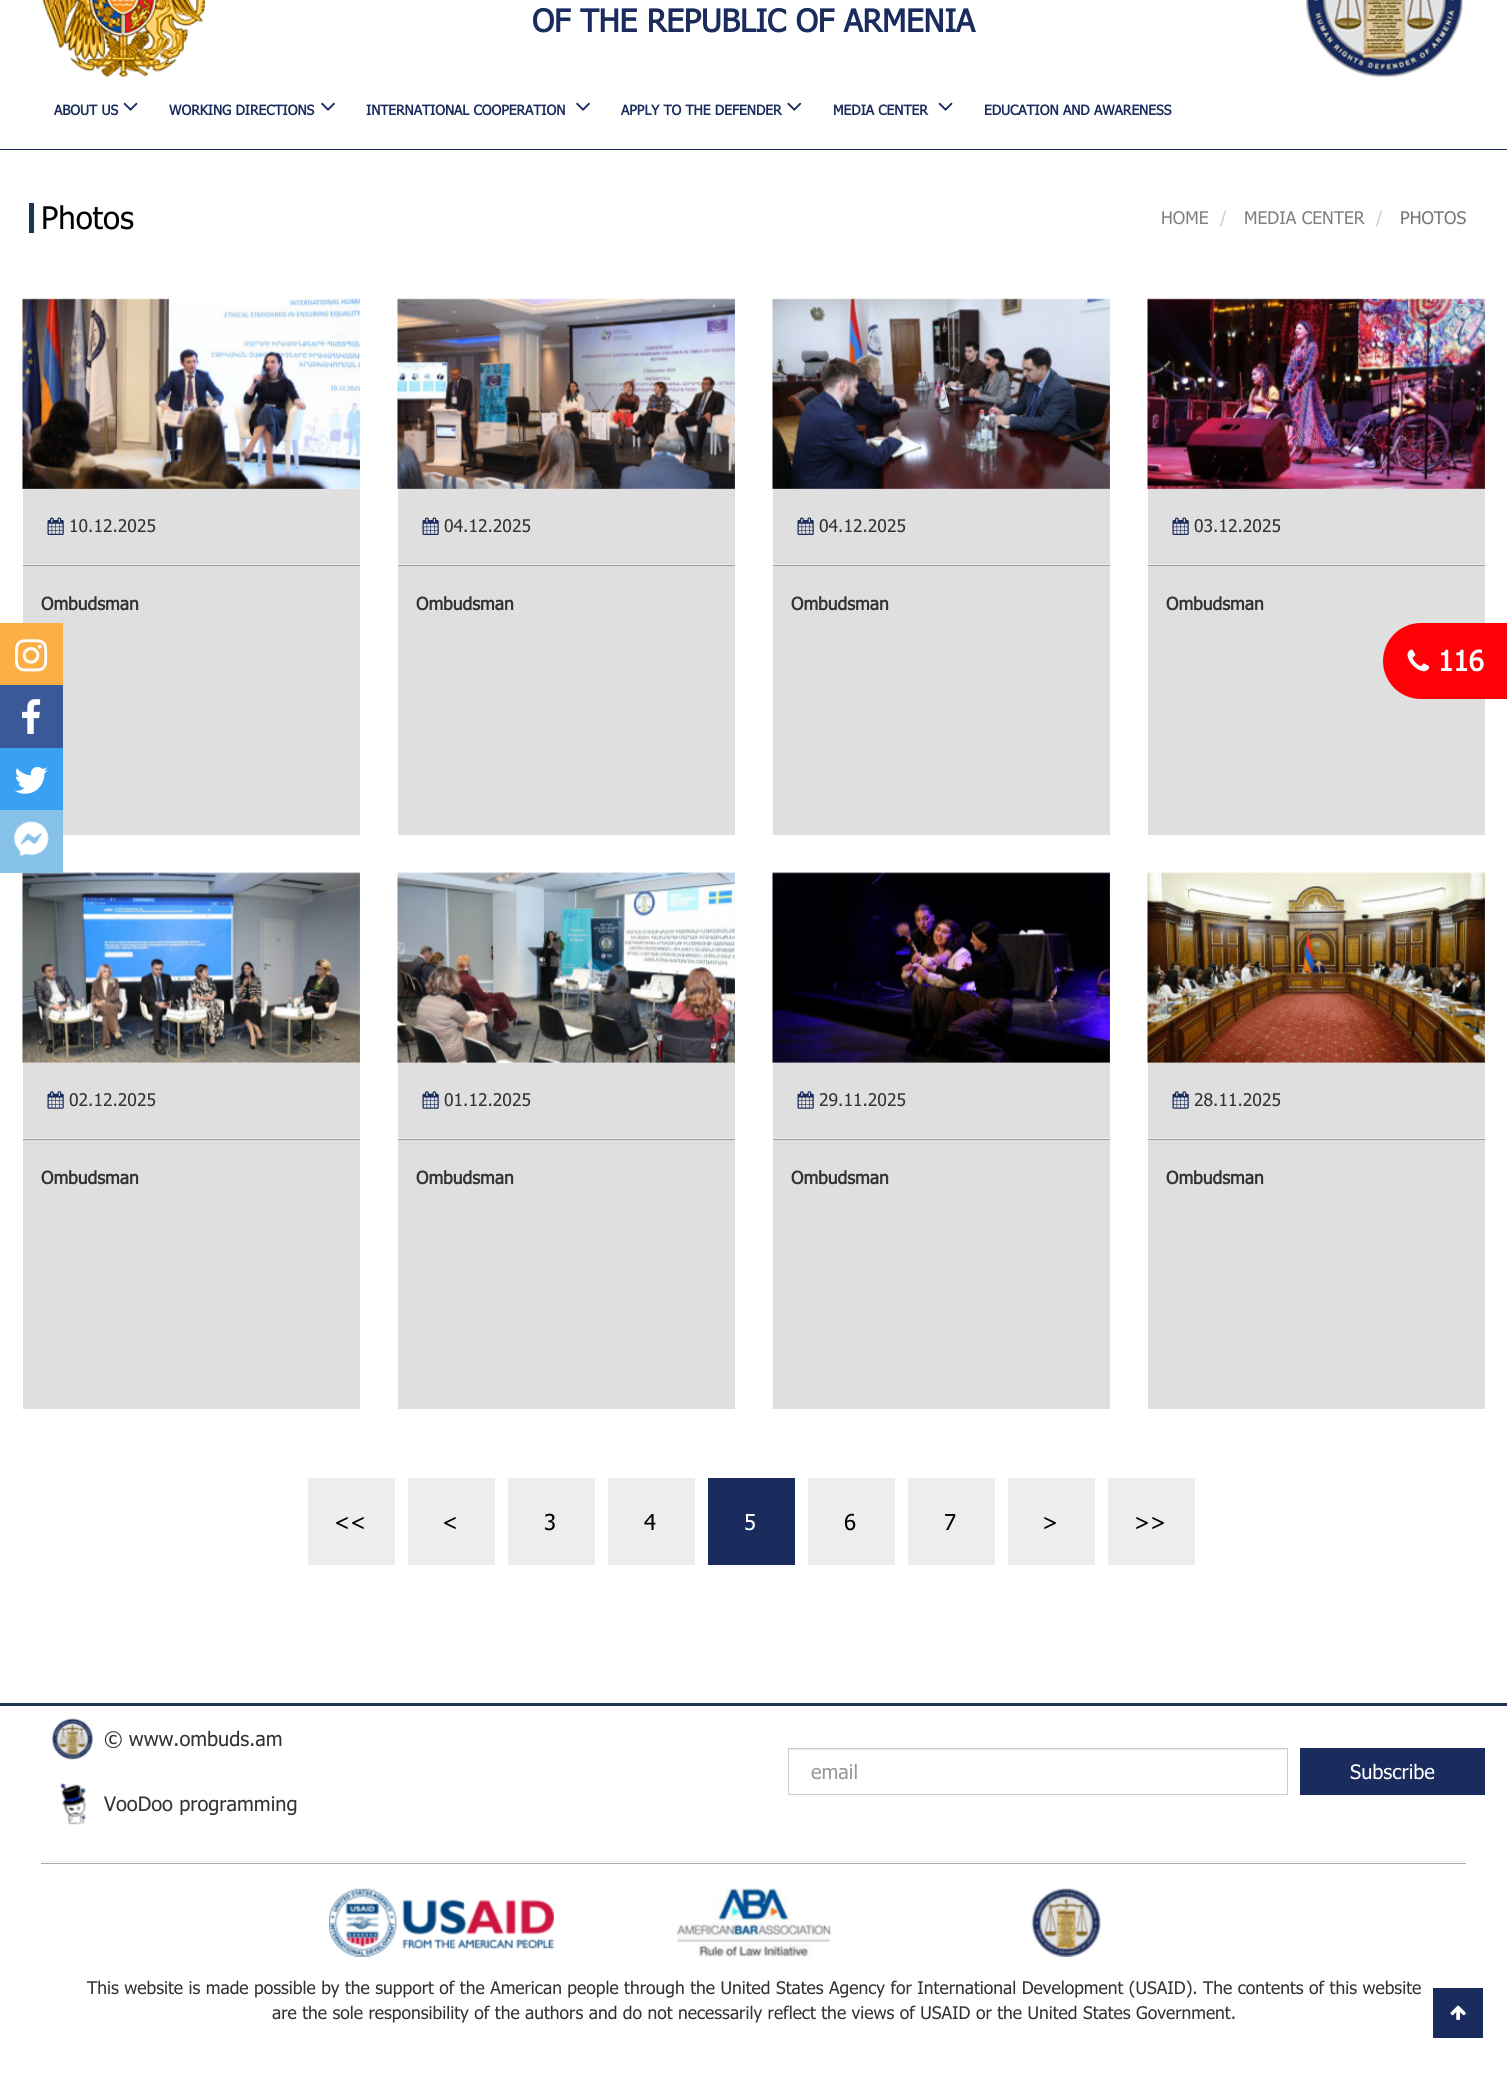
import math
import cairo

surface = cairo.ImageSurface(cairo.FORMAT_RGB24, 1507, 2074)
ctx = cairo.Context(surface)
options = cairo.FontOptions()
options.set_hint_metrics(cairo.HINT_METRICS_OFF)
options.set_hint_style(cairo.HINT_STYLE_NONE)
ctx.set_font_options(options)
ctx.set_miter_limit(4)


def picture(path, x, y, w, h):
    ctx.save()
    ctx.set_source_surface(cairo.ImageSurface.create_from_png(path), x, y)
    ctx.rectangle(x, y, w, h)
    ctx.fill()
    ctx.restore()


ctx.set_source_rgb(1, 1, 1)
ctx.paint()
ctx.set_source_rgb(0.102, 0.173, 0.369)
ctx.rectangle(0, 149, 1507, 1)
ctx.fill()
picture("img1.png", 42, 0, 163, 77)
ctx.select_font_face("Tahoma", cairo.FONT_SLANT_NORMAL, cairo.FONT_WEIGHT_BOLD)
ctx.set_font_size(31.25)
ctx.move_to(532, 32)
ctx.show_text("OF THE REPUBLIC OF ARMENIA")
picture("img2.png", 1306, 0, 157, 77)
ctx.set_font_size(13.75)
ctx.move_to(54, 115)
ctx.show_text("ABOUT US")
picture("img3.png", 123, 102, 15, 9)
ctx.move_to(169, 115)
ctx.show_text("WORKING DIRECTIONS")
picture("img4.png", 321, 102, 14, 9)
ctx.move_to(366, 115)
ctx.show_text("INTERNATIONAL COOPERATION")
picture("img4.png", 576, 102, 14, 9)
ctx.move_to(621, 115)
ctx.show_text("APPLY TO THE DEFENDER")
picture("img5.png", 787, 102, 15, 9)
ctx.move_to(833, 115)
ctx.show_text("MEDIA CENTER")
picture("img3.png", 938, 102, 15, 9)
ctx.move_to(984, 115)
ctx.show_text("EDUCATION AND AWARENESS")
ctx.set_source_rgb(0.875, 0.875, 0.875)
ctx.rectangle(23, 489, 337, 346)
ctx.fill()
ctx.set_source_rgb(0.988, 0.686, 0.271)
ctx.rectangle(0, 623, 63, 62)
ctx.fill()
picture("img6.png", 15, 639, 33, 33)
ctx.set_source_rgb(0.231, 0.349, 0.596)
ctx.rectangle(0, 685, 63, 63)
ctx.fill()
picture("img7.png", 22, 699, 19, 35)
ctx.set_source_rgb(0.22, 0.631, 0.953)
ctx.rectangle(0, 748, 63, 62)
ctx.fill()
picture("img8.png", 14, 767, 34, 27)
picture("img15.png", 22, 872, 338, 191)
ctx.set_source_rgb(0.522, 0.757, 0.914)
ctx.rectangle(0, 810, 63, 63)
ctx.fill()
picture("img9.png", 13, 821, 36, 36)
ctx.set_source_rgb(0.118, 0.204, 0.337)
ctx.rectangle(29, 203, 5, 30)
ctx.fill()
ctx.select_font_face("Tahoma")
ctx.set_font_size(31.25)
ctx.set_source_rgb(0, 0, 0)
ctx.move_to(41, 229)
ctx.show_text("Photos")
ctx.set_font_size(17.5)
ctx.set_source_rgb(0.502, 0.502, 0.502)
ctx.move_to(1161, 224)
ctx.show_text("HOME")
ctx.set_source_rgb(0.8, 0.8, 0.8)
ctx.move_to(1220, 224)
ctx.show_text("/")
ctx.set_source_rgb(0.502, 0.502, 0.502)
ctx.move_to(1244, 224)
ctx.show_text("MEDIA CENTER")
ctx.set_source_rgb(0.8, 0.8, 0.8)
ctx.move_to(1376, 224)
ctx.show_text("/")
ctx.set_source_rgb(0.467, 0.467, 0.467)
ctx.move_to(1400, 224)
ctx.show_text("PHOTOS")
picture("img10.png", 22, 298, 338, 191)
picture("img11.png", 47, 517, 17, 18)
ctx.set_source_rgb(0.2, 0.2, 0.2)
ctx.move_to(69, 532)
ctx.show_text("10.12.2025")
ctx.set_source_rgb(0.933, 0.933, 0.933)
ctx.rectangle(23, 564, 337, 1)
ctx.fill()
ctx.set_source_rgb(0.616, 0.616, 0.616)
ctx.rectangle(23, 565, 337, 1)
ctx.fill()
ctx.select_font_face("Tahoma", cairo.FONT_SLANT_NORMAL, cairo.FONT_WEIGHT_BOLD)
ctx.set_source_rgb(0.2, 0.2, 0.2)
ctx.move_to(41, 610)
ctx.show_text("Ombudsman")
picture("img12.png", 397, 298, 338, 191)
ctx.set_source_rgb(0.875, 0.875, 0.875)
ctx.rectangle(398, 489, 337, 346)
ctx.fill()
picture("img11.png", 422, 517, 17, 18)
ctx.select_font_face("Tahoma")
ctx.set_source_rgb(0.2, 0.2, 0.2)
ctx.move_to(444, 532)
ctx.show_text("04.12.2025")
ctx.set_source_rgb(0.933, 0.933, 0.933)
ctx.rectangle(398, 564, 337, 1)
ctx.fill()
ctx.set_source_rgb(0.616, 0.616, 0.616)
ctx.rectangle(398, 565, 337, 1)
ctx.fill()
ctx.select_font_face("Tahoma", cairo.FONT_SLANT_NORMAL, cairo.FONT_WEIGHT_BOLD)
ctx.set_source_rgb(0.2, 0.2, 0.2)
ctx.move_to(416, 610)
ctx.show_text("Ombudsman")
picture("img13.png", 772, 298, 338, 191)
ctx.set_source_rgb(0.875, 0.875, 0.875)
ctx.rectangle(773, 489, 337, 346)
ctx.fill()
picture("img11.png", 797, 517, 17, 18)
ctx.select_font_face("Tahoma")
ctx.set_source_rgb(0.2, 0.2, 0.2)
ctx.move_to(819, 532)
ctx.show_text("04.12.2025")
ctx.set_source_rgb(0.933, 0.933, 0.933)
ctx.rectangle(773, 564, 337, 1)
ctx.fill()
ctx.set_source_rgb(0.616, 0.616, 0.616)
ctx.rectangle(773, 565, 337, 1)
ctx.fill()
ctx.select_font_face("Tahoma", cairo.FONT_SLANT_NORMAL, cairo.FONT_WEIGHT_BOLD)
ctx.set_source_rgb(0.2, 0.2, 0.2)
ctx.move_to(791, 610)
ctx.show_text("Ombudsman")
picture("img14.png", 1147, 298, 338, 191)
ctx.set_source_rgb(0.875, 0.875, 0.875)
ctx.rectangle(1148, 489, 337, 346)
ctx.fill()
picture("img11.png", 1172, 517, 17, 18)
ctx.select_font_face("Tahoma")
ctx.set_source_rgb(0.2, 0.2, 0.2)
ctx.move_to(1194, 532)
ctx.show_text("03.12.2025")
ctx.set_source_rgb(0.933, 0.933, 0.933)
ctx.rectangle(1148, 564, 337, 1)
ctx.fill()
ctx.set_source_rgb(0.616, 0.616, 0.616)
ctx.rectangle(1148, 565, 337, 1)
ctx.fill()
ctx.select_font_face("Tahoma", cairo.FONT_SLANT_NORMAL, cairo.FONT_WEIGHT_BOLD)
ctx.set_source_rgb(0.2, 0.2, 0.2)
ctx.move_to(1166, 610)
ctx.show_text("Ombudsman")
ctx.set_source_rgb(0.875, 0.875, 0.875)
ctx.rectangle(23, 1063, 337, 346)
ctx.fill()
picture("img16.png", 47, 1091, 17, 18)
ctx.select_font_face("Tahoma")
ctx.set_source_rgb(0.2, 0.2, 0.2)
ctx.move_to(69, 1106)
ctx.show_text("02.12.2025")
ctx.set_source_rgb(0.933, 0.933, 0.933)
ctx.rectangle(23, 1138, 337, 1)
ctx.fill()
ctx.set_source_rgb(0.616, 0.616, 0.616)
ctx.rectangle(23, 1139, 337, 1)
ctx.fill()
ctx.select_font_face("Tahoma", cairo.FONT_SLANT_NORMAL, cairo.FONT_WEIGHT_BOLD)
ctx.set_source_rgb(0.2, 0.2, 0.2)
ctx.move_to(41, 1184)
ctx.show_text("Ombudsman")
picture("img17.png", 397, 872, 338, 191)
ctx.set_source_rgb(0.875, 0.875, 0.875)
ctx.rectangle(398, 1063, 337, 346)
ctx.fill()
picture("img16.png", 422, 1091, 17, 18)
ctx.select_font_face("Tahoma")
ctx.set_source_rgb(0.2, 0.2, 0.2)
ctx.move_to(444, 1106)
ctx.show_text("01.12.2025")
ctx.set_source_rgb(0.933, 0.933, 0.933)
ctx.rectangle(398, 1138, 337, 1)
ctx.fill()
ctx.set_source_rgb(0.616, 0.616, 0.616)
ctx.rectangle(398, 1139, 337, 1)
ctx.fill()
ctx.select_font_face("Tahoma", cairo.FONT_SLANT_NORMAL, cairo.FONT_WEIGHT_BOLD)
ctx.set_source_rgb(0.2, 0.2, 0.2)
ctx.move_to(416, 1184)
ctx.show_text("Ombudsman")
picture("img18.png", 772, 872, 338, 191)
ctx.set_source_rgb(0.875, 0.875, 0.875)
ctx.rectangle(773, 1063, 337, 346)
ctx.fill()
picture("img16.png", 797, 1091, 17, 18)
ctx.select_font_face("Tahoma")
ctx.set_source_rgb(0.2, 0.2, 0.2)
ctx.move_to(819, 1106)
ctx.show_text("29.11.2025")
ctx.set_source_rgb(0.933, 0.933, 0.933)
ctx.rectangle(773, 1138, 337, 1)
ctx.fill()
ctx.set_source_rgb(0.616, 0.616, 0.616)
ctx.rectangle(773, 1139, 337, 1)
ctx.fill()
ctx.select_font_face("Tahoma", cairo.FONT_SLANT_NORMAL, cairo.FONT_WEIGHT_BOLD)
ctx.set_source_rgb(0.2, 0.2, 0.2)
ctx.move_to(791, 1184)
ctx.show_text("Ombudsman")
picture("img19.png", 1147, 872, 338, 191)
ctx.set_source_rgb(0.875, 0.875, 0.875)
ctx.rectangle(1148, 1063, 337, 346)
ctx.fill()
picture("img16.png", 1172, 1091, 17, 18)
ctx.select_font_face("Tahoma")
ctx.set_source_rgb(0.2, 0.2, 0.2)
ctx.move_to(1194, 1106)
ctx.show_text("28.11.2025")
ctx.set_source_rgb(0.933, 0.933, 0.933)
ctx.rectangle(1148, 1138, 337, 1)
ctx.fill()
ctx.set_source_rgb(0.616, 0.616, 0.616)
ctx.rectangle(1148, 1139, 337, 1)
ctx.fill()
ctx.select_font_face("Tahoma", cairo.FONT_SLANT_NORMAL, cairo.FONT_WEIGHT_BOLD)
ctx.set_source_rgb(0.2, 0.2, 0.2)
ctx.move_to(1166, 1184)
ctx.show_text("Ombudsman")
ctx.set_source_rgb(0.933, 0.929, 0.929)
ctx.rectangle(308, 1478, 87, 87)
ctx.fill()
ctx.select_font_face("Tahoma")
ctx.set_font_size(22)
ctx.set_source_rgb(0, 0, 0)
ctx.move_to(334, 1530)
ctx.show_text("<<")
ctx.set_source_rgb(0.933, 0.929, 0.929)
ctx.rectangle(408, 1478, 87, 87)
ctx.fill()
ctx.set_source_rgb(0, 0, 0)
ctx.move_to(442, 1530)
ctx.show_text("<")
ctx.set_source_rgb(0.933, 0.929, 0.929)
ctx.rectangle(508, 1478, 87, 87)
ctx.fill()
ctx.set_source_rgb(0, 0, 0)
ctx.move_to(544, 1530)
ctx.show_text("3")
ctx.set_source_rgb(0.933, 0.929, 0.929)
ctx.rectangle(608, 1478, 87, 87)
ctx.fill()
ctx.set_source_rgb(0, 0, 0)
ctx.move_to(644, 1530)
ctx.show_text("4")
ctx.set_source_rgb(0.102, 0.173, 0.369)
ctx.rectangle(708, 1478, 87, 87)
ctx.fill()
ctx.set_source_rgb(1, 1, 1)
ctx.move_to(744, 1530)
ctx.show_text("5")
ctx.set_source_rgb(0.933, 0.929, 0.929)
ctx.rectangle(808, 1478, 87, 87)
ctx.fill()
ctx.set_source_rgb(0, 0, 0)
ctx.move_to(844, 1530)
ctx.show_text("6")
ctx.set_source_rgb(0.933, 0.929, 0.929)
ctx.rectangle(908, 1478, 87, 87)
ctx.fill()
ctx.set_source_rgb(0, 0, 0)
ctx.move_to(944, 1530)
ctx.show_text("7")
ctx.set_source_rgb(0.933, 0.929, 0.929)
ctx.rectangle(1008, 1478, 87, 87)
ctx.fill()
ctx.set_source_rgb(0, 0, 0)
ctx.move_to(1042, 1530)
ctx.show_text(">")
ctx.set_source_rgb(0.933, 0.929, 0.929)
ctx.rectangle(1108, 1478, 87, 87)
ctx.fill()
ctx.set_source_rgb(0, 0, 0)
ctx.move_to(1134, 1530)
ctx.show_text(">>")
ctx.set_source_rgb(1, 0, 0.027)
ctx.new_path()
ctx.move_to(1421, 623)
ctx.line_to(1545, 623)
ctx.line_to(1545, 699)
ctx.line_to(1421, 699)
ctx.curve_to(1400, 699, 1383, 682, 1383, 661)
ctx.curve_to(1383, 640, 1400, 623, 1421, 623)
ctx.close_path()
ctx.fill()
picture("img20.png", 1407, 649, 23, 23)
ctx.select_font_face("Tahoma", cairo.FONT_SLANT_NORMAL, cairo.FONT_WEIGHT_BOLD)
ctx.set_font_size(28)
ctx.set_source_rgb(1, 1, 1)
ctx.move_to(1438, 671)
ctx.show_text("116")
ctx.set_source_rgb(0.114, 0.208, 0.341)
ctx.rectangle(0, 1703, 1507, 3)
ctx.fill()
picture("img21.png", 52, 1718, 41, 42)
ctx.select_font_face("Tahoma")
ctx.set_font_size(20)
ctx.set_source_rgb(0.2, 0.2, 0.2)
ctx.move_to(104, 1746)
ctx.show_text("© www.ombuds.am")
picture("img22.png", 60, 1783, 26, 42)
ctx.move_to(104, 1811)
ctx.show_text("VooDoo programming")
ctx.set_source_rgb(0.925, 0.925, 0.925)
ctx.rectangle(789, 1749, 497, 1)
ctx.fill()
ctx.rectangle(788.5, 1748.5, 499, 46)
ctx.set_source_rgb(0.8, 0.8, 0.8)
ctx.set_line_width(1)
ctx.stroke()
ctx.set_source_rgb(0.6, 0.6, 0.6)
ctx.move_to(811, 1779)
ctx.show_text("email")
ctx.set_source_rgb(0.102, 0.173, 0.369)
ctx.rectangle(1300, 1748, 185, 47)
ctx.fill()
ctx.set_source_rgb(1, 1, 1)
ctx.move_to(1350, 1779)
ctx.show_text("Subscribe")
ctx.set_source_rgb(0.933, 0.933, 0.933)
ctx.rectangle(41, 1861, 1425, 1)
ctx.fill()
ctx.set_source_rgb(0.655, 0.655, 0.655)
ctx.rectangle(41, 1863, 1425, 1)
ctx.fill()
picture("img23.png", 329, 1888, 225, 69)
picture("img24.png", 676, 1888, 155, 69)
picture("img25.png", 1031, 1888, 70, 69)
ctx.set_font_size(17.5)
ctx.set_source_rgb(0.2, 0.2, 0.2)
ctx.move_to(87, 1994)
ctx.show_text("This website is made possible by the support of the American people through the United States Agency for International Development (USAID). The contents of this website")
ctx.move_to(272, 2019)
ctx.show_text("are the sole responsibility of the authors and do not necessarily reflect the views of USAID or the United States Government.")
ctx.set_source_rgb(0.102, 0.173, 0.369)
ctx.rectangle(1433, 1988, 50, 50)
ctx.fill()
picture("img26.png", 1450, 2005, 16, 15)
surface.write_to_png("page.png")
